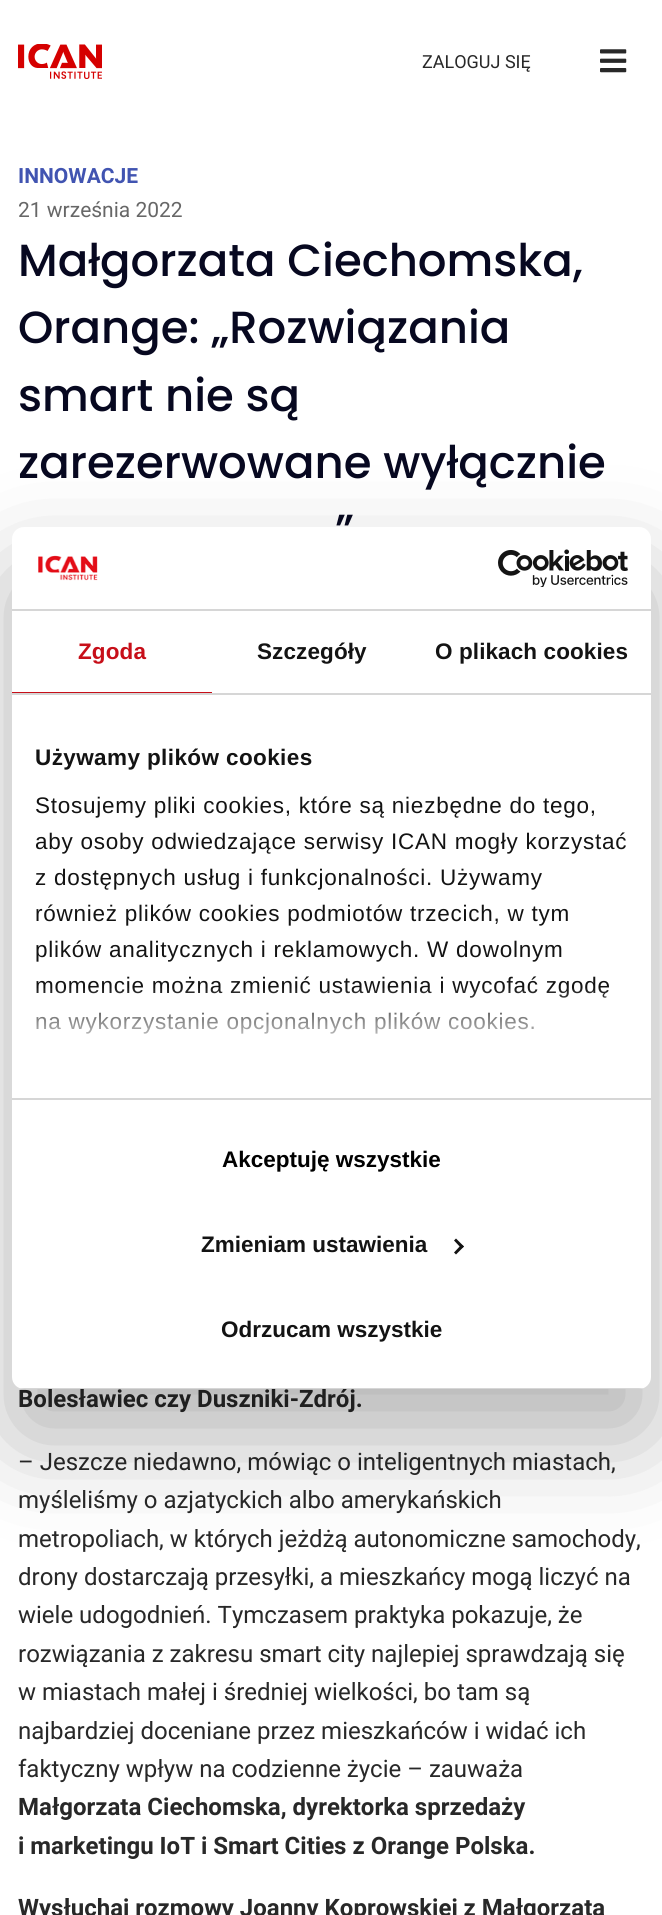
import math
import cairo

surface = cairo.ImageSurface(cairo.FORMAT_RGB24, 662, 1915)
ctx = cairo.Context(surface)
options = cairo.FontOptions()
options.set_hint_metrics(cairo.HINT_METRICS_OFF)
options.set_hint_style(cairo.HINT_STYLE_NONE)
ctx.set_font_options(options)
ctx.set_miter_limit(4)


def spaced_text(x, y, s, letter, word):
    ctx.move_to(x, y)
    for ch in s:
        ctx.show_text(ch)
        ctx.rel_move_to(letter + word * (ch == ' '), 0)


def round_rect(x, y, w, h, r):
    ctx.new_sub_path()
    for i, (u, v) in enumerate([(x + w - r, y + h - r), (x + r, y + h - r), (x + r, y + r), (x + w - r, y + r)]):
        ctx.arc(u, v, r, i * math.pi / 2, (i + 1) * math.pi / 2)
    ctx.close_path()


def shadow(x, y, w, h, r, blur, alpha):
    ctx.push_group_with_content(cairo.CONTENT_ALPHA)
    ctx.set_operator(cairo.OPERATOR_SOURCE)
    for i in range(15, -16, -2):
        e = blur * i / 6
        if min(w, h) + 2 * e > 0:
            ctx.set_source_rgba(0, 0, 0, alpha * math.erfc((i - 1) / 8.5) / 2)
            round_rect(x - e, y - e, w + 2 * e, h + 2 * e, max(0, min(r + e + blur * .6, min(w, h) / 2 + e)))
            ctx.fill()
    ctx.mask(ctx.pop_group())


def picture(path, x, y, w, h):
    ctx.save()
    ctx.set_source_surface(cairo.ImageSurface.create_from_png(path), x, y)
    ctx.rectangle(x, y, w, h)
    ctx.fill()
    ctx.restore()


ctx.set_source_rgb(1, 1, 1)
ctx.paint()
picture("img1.png", 18, 44, 84, 35)
ctx.select_font_face("Roboto")
ctx.set_font_size(18)
ctx.set_source_rgb(0.157, 0.157, 0.157)
ctx.move_to(422, 68)
ctx.show_text("ZALOGUJ SIĘ")
picture("img2.png", 600, 49, 27, 24)
ctx.select_font_face("Roboto", cairo.FONT_SLANT_NORMAL, cairo.FONT_WEIGHT_BOLD)
ctx.set_font_size(21)
ctx.set_source_rgb(0.255, 0.329, 0.694)
ctx.move_to(18, 183)
ctx.show_text("INNOWACJE")
ctx.select_font_face("Roboto")
ctx.set_source_rgb(0.404, 0.404, 0.404)
ctx.move_to(18, 217)
ctx.show_text("21 września 2022")
ctx.select_font_face("Poppins Medium")
ctx.set_font_size(45)
ctx.set_source_rgb(0.031, 0.035, 0.125)
ctx.move_to(18, 276)
ctx.show_text("Małgorzata Ciechomska,")
ctx.move_to(18, 343)
ctx.show_text("Orange: „Rozwiązania")
ctx.move_to(18, 411)
ctx.show_text("smart nie są")
ctx.move_to(18, 478)
ctx.show_text("zarezerwowane wyłącznie")
ctx.move_to(335, 546)
ctx.show_text("”")
ctx.select_font_face("Roboto", cairo.FONT_SLANT_NORMAL, cairo.FONT_WEIGHT_BOLD)
ctx.set_font_size(24)
ctx.set_source_rgb(0.157, 0.157, 0.157)
ctx.move_to(18, 1407)
ctx.show_text("Bolesławiec czy Duszniki‑Zdrój.")
ctx.select_font_face("Roboto")
ctx.move_to(18, 1470)
ctx.show_text("– Jeszcze niedawno, mówiąc o inteligentnych miastach,")
ctx.move_to(18, 1508)
ctx.show_text("myśleliśmy o azjatyckich albo amerykańskich")
ctx.move_to(18, 1547)
ctx.show_text("metropoliach, w których jeżdżą autonomiczne samochody,")
ctx.move_to(18, 1585)
ctx.show_text("drony dostarczają przesyłki, a mieszkańcy mogą liczyć na")
ctx.move_to(18, 1623)
ctx.show_text("wiele udogodnień. Tymczasem praktyka pokazuje, że")
ctx.move_to(18, 1662)
ctx.show_text("rozwiązania z zakresu smart city najlepiej sprawdzają się")
ctx.move_to(18, 1700)
ctx.show_text("w miastach małej i średniej wielkości, bo tam są")
ctx.move_to(18, 1739)
ctx.show_text("najbardziej doceniane przez mieszkańców i widać ich")
ctx.move_to(18, 1777)
ctx.show_text("faktyczny wpływ na codzienne życie – zauważa")
ctx.select_font_face("Roboto", cairo.FONT_SLANT_NORMAL, cairo.FONT_WEIGHT_BOLD)
ctx.move_to(18, 1815)
ctx.show_text("Małgorzata Ciechomska, dyrektorka sprzedaży")
ctx.move_to(18, 1854)
ctx.show_text("i marketingu IoT i Smart Cities z Orange Polska.")
ctx.move_to(18, 1916)
ctx.show_text("Wysłuchaj rozmowy Joanny Koprowskiej z Małgorzatą")
ctx.set_source_rgb(0, 0, 0)
shadow(12, 575, 639, 862, 12, 51, 0.3)
ctx.set_source_rgb(1, 1, 1)
round_rect(12, 527, 639, 862, 12)
ctx.fill()
ctx.set_source_rgb(0.839, 0.839, 0.839)
ctx.rectangle(12, 609, 639, 2)
ctx.fill()
picture("img3.png", 38, 555, 60, 26)
picture("img4.png", 498, 549, 130, 38)
ctx.rectangle(12, 693, 639, 2)
ctx.fill()
ctx.set_source_rgb(0.78, 0.059, 0.098)
ctx.rectangle(12, 692, 200, 1)
ctx.fill()
ctx.select_font_face("Liberation Sans", cairo.FONT_SLANT_NORMAL, cairo.FONT_WEIGHT_BOLD)
ctx.set_font_size(22.5)
spaced_text(78, 659, "Zgoda", 0.1, 0)
ctx.set_source_rgb(0.078, 0.078, 0.078)
spaced_text(257, 659, "Szczegóły", 0.1, 0)
spaced_text(435, 659, "O plikach cookies", 0.1, 0)
ctx.set_source_rgb(0.839, 0.839, 0.839)
ctx.rectangle(12, 1098, 639, 2)
ctx.fill()
ctx.set_source_rgb(0.078, 0.078, 0.078)
spaced_text(35, 765, "Używamy plików cookies", 0.4, 0)
ctx.select_font_face("Liberation Sans")
spaced_text(35, 813, "Stosujemy pliki cookies, które są niezbędne do tego,", 0.75, 0)
spaced_text(35, 849, "aby osoby odwiedzające serwisy ICAN mogły korzystać", 0.75, 0)
spaced_text(35, 885, "z dostępnych usług i funkcjonalności. Używamy", 0.75, 0)
spaced_text(35, 921, "również plików cookies podmiotów trzecich, w tym", 0.75, 0)
spaced_text(35, 957, "plików analitycznych i reklamowych. W dowolnym", 0.75, 0)
spaced_text(35, 993, "momencie można zmienić ustawienia i wycofać zgodę", 0.75, 0)
spaced_text(35, 1029, "na wykorzystanie opcjonalnych plików cookies.", 0.75, 0)
gradient = cairo.LinearGradient(322, 1098, 322, 986)
gradient.add_color_stop_rgba(0, 1, 1, 1, 1)
gradient.add_color_stop_rgba(0.5, 1, 1, 1, 0.8)
gradient.add_color_stop_rgba(1, 1, 1, 1, 0)
ctx.set_source(gradient)
ctx.rectangle(36, 988, 572, 46)
ctx.fill()
ctx.save()
round_rect(12, 527, 639, 862, 12)
ctx.clip()
ctx.set_source_rgb(0.839, 0.839, 0.839)
ctx.rectangle(12, 1388, 639, 1)
ctx.fill()
ctx.restore()
ctx.select_font_face("Liberation Sans", cairo.FONT_SLANT_NORMAL, cairo.FONT_WEIGHT_BOLD)
ctx.set_source_rgb(0, 0, 0)
ctx.move_to(222, 1167)
ctx.show_text("Akceptuję wszystkie")
ctx.set_source_rgb(0.078, 0.078, 0.078)
ctx.move_to(201, 1252)
ctx.show_text("Zmieniam ustawienia")
ctx.new_path()
ctx.move_to(456, 1238.5)
ctx.line_to(464, 1246.5)
ctx.line_to(461.5, 1248.5)
ctx.line_to(454, 1240.5)
ctx.close_path()
ctx.fill()
ctx.new_path()
ctx.move_to(461.5, 1244.5)
ctx.line_to(464, 1246.5)
ctx.line_to(456, 1254.5)
ctx.line_to(454, 1252.5)
ctx.close_path()
ctx.fill()
ctx.move_to(221, 1337)
ctx.show_text("Odrzucam wszystkie")
surface.write_to_png("page.png")
